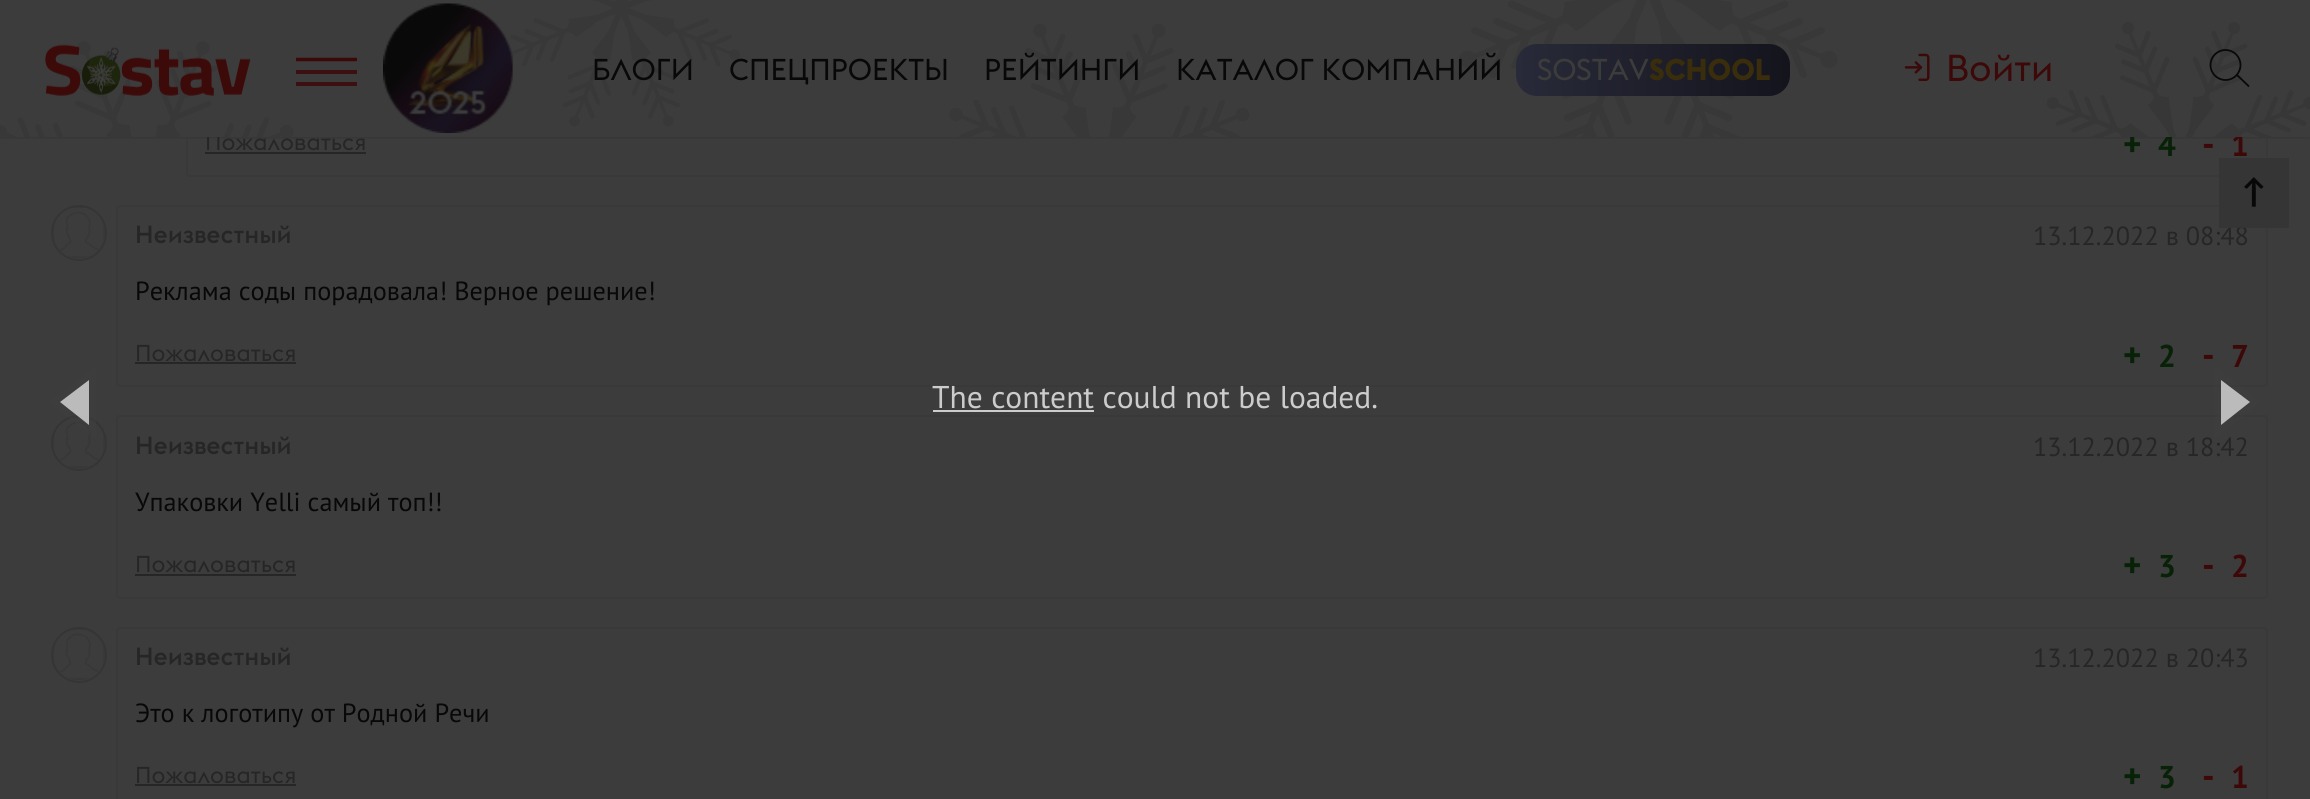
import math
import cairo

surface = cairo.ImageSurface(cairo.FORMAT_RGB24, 2310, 799)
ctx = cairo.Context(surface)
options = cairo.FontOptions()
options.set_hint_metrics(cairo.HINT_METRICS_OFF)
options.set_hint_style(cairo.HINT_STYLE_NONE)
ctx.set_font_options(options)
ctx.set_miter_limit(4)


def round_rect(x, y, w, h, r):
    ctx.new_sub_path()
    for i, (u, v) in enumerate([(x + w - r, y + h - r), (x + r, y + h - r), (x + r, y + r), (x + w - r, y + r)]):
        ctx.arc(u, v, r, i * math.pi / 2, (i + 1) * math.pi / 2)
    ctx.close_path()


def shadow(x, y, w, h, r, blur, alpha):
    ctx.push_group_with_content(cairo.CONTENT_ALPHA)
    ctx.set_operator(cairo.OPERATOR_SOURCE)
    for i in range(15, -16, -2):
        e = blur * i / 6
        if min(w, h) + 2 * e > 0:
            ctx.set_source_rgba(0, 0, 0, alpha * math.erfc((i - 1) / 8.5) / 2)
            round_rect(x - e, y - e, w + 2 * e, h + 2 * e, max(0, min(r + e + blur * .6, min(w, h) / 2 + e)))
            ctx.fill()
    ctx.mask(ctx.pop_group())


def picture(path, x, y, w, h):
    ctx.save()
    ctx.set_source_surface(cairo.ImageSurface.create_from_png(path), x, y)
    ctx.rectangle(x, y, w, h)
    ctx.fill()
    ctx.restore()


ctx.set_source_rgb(0.235, 0.235, 0.235)
ctx.paint()
round_rect(187, -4, 2080, 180, 3)
ctx.set_source_rgb(0.224, 0.224, 0.224)
ctx.stroke()
ctx.set_source_rgb(0.216, 0.208, 0.212)
shadow(0, 2, 2310, 136, 0, 1, 1)
ctx.select_font_face("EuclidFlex")
ctx.set_font_size(22.75)
ctx.set_source_rgb(0.149, 0.149, 0.149)
ctx.move_to(205, 150)
ctx.show_text("Пожаловаться")
ctx.select_font_face("PT Sans", cairo.FONT_SLANT_NORMAL, cairo.FONT_WEIGHT_BOLD)
ctx.set_font_size(35)
ctx.set_source_rgb(0.035, 0.133, 0.035)
ctx.move_to(2123, 156)
ctx.show_text("+")
ctx.set_font_size(31.5)
ctx.move_to(2158, 156)
ctx.show_text("4")
ctx.set_source_rgb(0.235, 0.035, 0.035)
ctx.move_to(2231, 156)
ctx.show_text("1")
ctx.set_source_rgb(0.235, 0.235, 0.235)
ctx.rectangle(0, 0, 2310, 137)
ctx.fill()
picture("img1.png", 0, 0, 2310, 137)
picture("img2.png", 45, 44, 206, 52)
ctx.new_path()
ctx.move_to(296, 59.5)
ctx.line_to(357, 59.5)
ctx.set_source_rgb(0.235, 0.035, 0.035)
ctx.set_line_width(3.5)
ctx.stroke()
ctx.set_source_rgb(0.235, 0.059, 0.063)
ctx.rectangle(296, 70, 61, 4)
ctx.fill()
ctx.rectangle(296, 82, 61, 4)
ctx.fill()
picture("img3.png", 383, 3, 130, 130)
ctx.select_font_face("EuclidFlex")
ctx.set_font_size(29.75)
ctx.set_source_rgb(0.035, 0.035, 0.035)
ctx.move_to(592, 80)
ctx.show_text("БЛОГИ")
ctx.move_to(729, 80)
ctx.show_text("СПЕЦПРОЕКТЫ")
ctx.move_to(984, 80)
ctx.show_text("РЕЙТИНГИ")
ctx.move_to(1176, 80)
ctx.show_text("КАТАЛОГ КОМПАНИЙ")
gradient = cairo.LinearGradient(1516, 70, 2065, 70)
gradient.add_color_stop_rgba(0, 0.161, 0.165, 0.224, 1)
gradient.add_color_stop_rgba(0.5, 0.075, 0.078, 0.11, 1)
gradient.add_color_stop_rgba(1, 0.161, 0.165, 0.224, 1)
ctx.set_source(gradient)
round_rect(1516, 44, 274, 52, 21)
ctx.fill()
ctx.set_source_rgb(0.235, 0.235, 0.235)
ctx.move_to(1537, 80)
ctx.show_text("SOSTAV")
ctx.select_font_face("EuclidFlex", cairo.FONT_SLANT_NORMAL, cairo.FONT_WEIGHT_BOLD)
ctx.set_source_rgb(0.227, 0.176, 0.043)
ctx.move_to(1649, 80)
ctx.show_text("SCHOOL")
picture("img4.png", 1904, 53, 26, 28)
ctx.select_font_face("EuclidFlex")
ctx.set_font_size(37)
ctx.set_source_rgb(0.235, 0.035, 0.035)
ctx.move_to(1946, 81)
ctx.show_text("Войти")
ctx.new_path()
ctx.arc(2225.5, 65, 15, 0, 2 * math.pi)
ctx.set_source_rgb(0.035, 0.035, 0.035)
ctx.set_line_width(1.8)
ctx.stroke()
ctx.new_path()
ctx.move_to(2236.5, 74.5)
ctx.line_to(2249, 86.5)
ctx.stroke()
ctx.set_source_rgb(0.149, 0.149, 0.149)
ctx.rectangle(205, 152, 161, 2)
ctx.fill()
ctx.select_font_face("PT Sans", cairo.FONT_SLANT_NORMAL, cairo.FONT_WEIGHT_BOLD)
ctx.set_font_size(35)
ctx.set_source_rgb(0.235, 0.035, 0.035)
ctx.move_to(2202, 156)
ctx.show_text("-")
ctx.new_path()
ctx.arc(79, 233, 27, 0, 2 * math.pi)
ctx.set_source_rgb(0.208, 0.208, 0.208)
ctx.set_line_width(2)
ctx.stroke()
picture("img5.png", 53, 206, 52, 53)
round_rect(117, 206, 2150, 180, 3)
ctx.set_source_rgb(0.224, 0.224, 0.224)
ctx.stroke()
ctx.select_font_face("EuclidFlex Medium")
ctx.set_font_size(24.5)
ctx.set_source_rgb(0.149, 0.149, 0.149)
ctx.move_to(135, 243)
ctx.show_text("Неизвестный")
ctx.select_font_face("PT Sans")
ctx.set_font_size(26.25)
ctx.move_to(2033, 245)
ctx.show_text("13.12.2022 в 08:48")
ctx.set_source_rgb(0.035, 0.035, 0.035)
ctx.move_to(135, 300)
ctx.show_text("Реклама соды порадовала! Верное решение!")
ctx.select_font_face("EuclidFlex")
ctx.set_font_size(22.75)
ctx.set_source_rgb(0.149, 0.149, 0.149)
ctx.move_to(135, 361)
ctx.show_text("Пожаловаться")
ctx.rectangle(135, 362, 161, 2)
ctx.fill()
ctx.select_font_face("PT Sans", cairo.FONT_SLANT_NORMAL, cairo.FONT_WEIGHT_BOLD)
ctx.set_font_size(35)
ctx.set_source_rgb(0.035, 0.133, 0.035)
ctx.move_to(2123, 367)
ctx.show_text("+")
ctx.set_font_size(31.5)
ctx.move_to(2158, 367)
ctx.show_text("2")
ctx.set_font_size(35)
ctx.set_source_rgb(0.235, 0.035, 0.035)
ctx.move_to(2202, 367)
ctx.show_text("-")
ctx.set_font_size(31.5)
ctx.move_to(2231, 367)
ctx.show_text("7")
ctx.new_path()
ctx.arc(79, 443, 27, 0, 2 * math.pi)
ctx.set_source_rgb(0.208, 0.208, 0.208)
ctx.stroke()
picture("img5.png", 53, 416, 52, 53)
round_rect(117, 416, 2150, 182, 3)
ctx.set_source_rgb(0.224, 0.224, 0.224)
ctx.stroke()
ctx.select_font_face("EuclidFlex Medium")
ctx.set_font_size(24.5)
ctx.set_source_rgb(0.149, 0.149, 0.149)
ctx.move_to(135, 454)
ctx.show_text("Неизвестный")
ctx.select_font_face("PT Sans")
ctx.set_font_size(26.25)
ctx.move_to(2033, 456)
ctx.show_text("13.12.2022 в 18:42")
ctx.set_source_rgb(0.035, 0.035, 0.035)
ctx.move_to(135, 511)
ctx.show_text("Упаковки Yelli самый топ!!")
ctx.select_font_face("EuclidFlex")
ctx.set_font_size(22.75)
ctx.set_source_rgb(0.149, 0.149, 0.149)
ctx.move_to(135, 572)
ctx.show_text("Пожаловаться")
ctx.rectangle(135, 574, 161, 2)
ctx.fill()
ctx.select_font_face("PT Sans", cairo.FONT_SLANT_NORMAL, cairo.FONT_WEIGHT_BOLD)
ctx.set_font_size(35)
ctx.set_source_rgb(0.035, 0.133, 0.035)
ctx.move_to(2123, 577)
ctx.show_text("+")
ctx.set_font_size(31.5)
ctx.move_to(2158, 577)
ctx.show_text("3")
ctx.set_font_size(35)
ctx.set_source_rgb(0.235, 0.035, 0.035)
ctx.move_to(2202, 577)
ctx.show_text("-")
ctx.set_font_size(31.5)
ctx.move_to(2231, 577)
ctx.show_text("2")
ctx.new_path()
ctx.arc(79, 655, 27, 0, 2 * math.pi)
ctx.set_source_rgb(0.208, 0.208, 0.208)
ctx.stroke()
picture("img6.png", 53, 628, 52, 52)
round_rect(117, 628, 2150, 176, 3)
ctx.set_source_rgb(0.224, 0.224, 0.224)
ctx.stroke()
ctx.select_font_face("EuclidFlex Medium")
ctx.set_font_size(24.5)
ctx.set_source_rgb(0.149, 0.149, 0.149)
ctx.move_to(135, 665)
ctx.show_text("Неизвестный")
ctx.select_font_face("PT Sans")
ctx.set_font_size(26.25)
ctx.move_to(2033, 667)
ctx.show_text("13.12.2022 в 20:43")
ctx.set_source_rgb(0.035, 0.035, 0.035)
ctx.move_to(135, 722)
ctx.show_text("Это к логотипу от Родной Речи")
ctx.select_font_face("EuclidFlex")
ctx.set_font_size(22.75)
ctx.set_source_rgb(0.149, 0.149, 0.149)
ctx.move_to(135, 783)
ctx.show_text("Пожаловаться")
ctx.rectangle(135, 784, 161, 2)
ctx.fill()
ctx.select_font_face("PT Sans", cairo.FONT_SLANT_NORMAL, cairo.FONT_WEIGHT_BOLD)
ctx.set_font_size(35)
ctx.set_source_rgb(0.035, 0.133, 0.035)
ctx.move_to(2123, 788)
ctx.show_text("+")
ctx.set_font_size(31.5)
ctx.move_to(2158, 788)
ctx.show_text("3")
ctx.set_font_size(35)
ctx.set_source_rgb(0.235, 0.035, 0.035)
ctx.move_to(2202, 788)
ctx.show_text("-")
ctx.set_font_size(31.5)
ctx.move_to(2231, 788)
ctx.show_text("1")
ctx.set_source_rgba(0.247, 0.247, 0.247, 0.45)
ctx.new_path()
ctx.move_to(96, 366)
ctx.line_to(96, 439)
ctx.line_to(49, 402)
ctx.close_path()
ctx.fill()
ctx.set_source_rgba(1, 1, 1, 0.65)
ctx.new_path()
ctx.move_to(89, 380)
ctx.line_to(89, 425)
ctx.line_to(60, 402)
ctx.close_path()
ctx.fill()
ctx.select_font_face("PT Sans")
ctx.set_source_rgb(0.8, 0.8, 0.8)
ctx.move_to(932, 408)
ctx.show_text("The content could not be loaded.")
ctx.rectangle(933, 410, 161, 2)
ctx.fill()
ctx.set_source_rgba(0.247, 0.247, 0.247, 0.45)
ctx.new_path()
ctx.move_to(2214, 439)
ctx.line_to(2214, 366)
ctx.line_to(2261, 402)
ctx.close_path()
ctx.fill()
ctx.set_source_rgb(0.733, 0.733, 0.733)
ctx.new_path()
ctx.move_to(2221, 425)
ctx.line_to(2221, 380)
ctx.line_to(2250, 402)
ctx.close_path()
ctx.fill()
ctx.set_source_rgba(0.204, 0.204, 0.204, 0.9)
ctx.rectangle(2219, 158, 70, 70)
ctx.fill()
ctx.select_font_face("Carlito", cairo.FONT_SLANT_NORMAL, cairo.FONT_WEIGHT_BOLD)
ctx.set_font_size(35)
ctx.set_source_rgb(0.035, 0.035, 0.035)
ctx.move_to(2238, 203)
ctx.show_text("↑")
surface.write_to_png("page.png")
